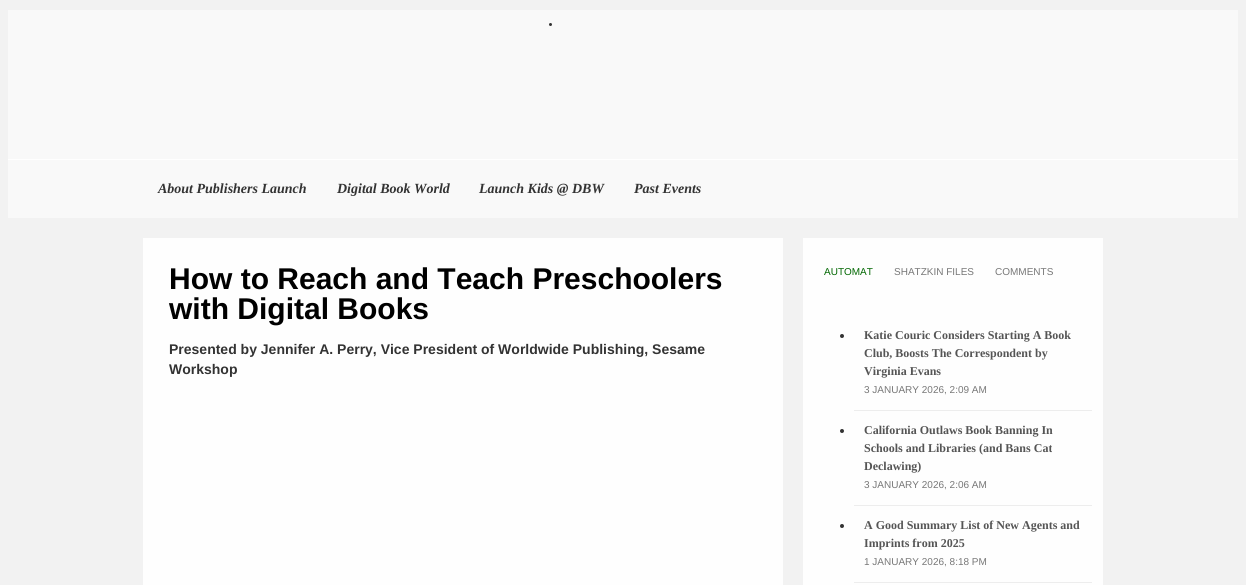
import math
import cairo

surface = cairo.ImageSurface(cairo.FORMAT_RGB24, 1246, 585)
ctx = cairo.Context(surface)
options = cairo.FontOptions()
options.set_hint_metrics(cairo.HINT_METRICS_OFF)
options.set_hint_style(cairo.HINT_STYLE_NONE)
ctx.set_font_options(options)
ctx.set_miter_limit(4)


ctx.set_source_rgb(0.949, 0.949, 0.949)
ctx.paint()
ctx.set_source_rgb(0.976, 0.976, 0.976)
ctx.rectangle(8, 10, 1230, 208)
ctx.fill()
ctx.set_source_rgb(0.2, 0.2, 0.2)
ctx.arc(550.5, 24.5, 1.5, 0, 2 * math.pi)
ctx.fill()
ctx.set_source_rgb(1, 1, 1)
ctx.rectangle(8, 159, 1230, 1)
ctx.fill()
ctx.select_font_face("Liberation Serif", cairo.FONT_SLANT_ITALIC, cairo.FONT_WEIGHT_BOLD)
ctx.set_font_size(14)
ctx.set_source_rgb(0.2, 0.2, 0.2)
ctx.move_to(158, 193)
ctx.show_text("About Publishers Launch")
ctx.move_to(337, 193)
ctx.show_text("Digital Book World")
ctx.move_to(479, 193)
ctx.show_text("Launch Kids @ DBW")
ctx.move_to(634, 193)
ctx.show_text("Past Events")
ctx.set_source_rgb(0.996, 0.996, 0.996)
ctx.rectangle(143, 238, 640, 347)
ctx.fill()
ctx.select_font_face("Liberation Sans", cairo.FONT_SLANT_NORMAL, cairo.FONT_WEIGHT_BOLD)
ctx.set_font_size(30)
ctx.set_source_rgb(0, 0, 0)
ctx.move_to(169, 289)
ctx.show_text("How to Reach and Teach Preschoolers")
ctx.move_to(169, 319)
ctx.show_text("with Digital Books")
ctx.set_font_size(14)
ctx.set_source_rgb(0.2, 0.2, 0.2)
ctx.move_to(169, 354)
ctx.show_text("Presented by Jennifer A. Perry, Vice President of Worldwide Publishing, Sesame")
ctx.move_to(169, 374)
ctx.show_text("Workshop")
ctx.set_source_rgb(0.996, 0.996, 0.996)
ctx.rectangle(803, 238, 300, 347)
ctx.fill()
ctx.select_font_face("Liberation Sans")
ctx.set_font_size(10)
ctx.set_source_rgb(0, 0.4, 0)
ctx.move_to(824, 275)
ctx.show_text("AUTOMAT")
ctx.set_source_rgb(0.467, 0.467, 0.467)
ctx.move_to(894, 275)
ctx.show_text("SHATZKIN FILES")
ctx.move_to(995, 275)
ctx.show_text("COMMENTS")
ctx.set_source_rgb(0.929, 0.929, 0.929)
ctx.rectangle(854, 410, 238, 1)
ctx.fill()
ctx.set_source_rgb(0.2, 0.2, 0.2)
ctx.arc(842, 336, 2, 0, 2 * math.pi)
ctx.fill()
ctx.select_font_face("Liberation Serif", cairo.FONT_SLANT_NORMAL, cairo.FONT_WEIGHT_BOLD)
ctx.set_font_size(12)
ctx.set_source_rgb(0.333, 0.333, 0.333)
ctx.move_to(864, 339)
ctx.show_text("Katie Couric Considers Starting A Book")
ctx.move_to(864, 357)
ctx.show_text("Club, Boosts The Correspondent by")
ctx.move_to(864, 375)
ctx.show_text("Virginia Evans")
ctx.select_font_face("Liberation Sans")
ctx.set_font_size(10)
ctx.set_source_rgb(0.467, 0.467, 0.467)
ctx.move_to(864, 393)
ctx.show_text("3 JANUARY 2026, 2:09 AM")
ctx.set_source_rgb(0.929, 0.929, 0.929)
ctx.rectangle(854, 505, 238, 1)
ctx.fill()
ctx.set_source_rgb(0.2, 0.2, 0.2)
ctx.arc(842, 431, 2, 0, 2 * math.pi)
ctx.fill()
ctx.select_font_face("Liberation Serif", cairo.FONT_SLANT_NORMAL, cairo.FONT_WEIGHT_BOLD)
ctx.set_font_size(12)
ctx.set_source_rgb(0.333, 0.333, 0.333)
ctx.move_to(864, 434)
ctx.show_text("California Outlaws Book Banning In")
ctx.move_to(864, 452)
ctx.show_text("Schools and Libraries (and Bans Cat")
ctx.move_to(864, 470)
ctx.show_text("Declawing)")
ctx.select_font_face("Liberation Sans")
ctx.set_font_size(10)
ctx.set_source_rgb(0.467, 0.467, 0.467)
ctx.move_to(864, 488)
ctx.show_text("3 JANUARY 2026, 2:06 AM")
ctx.set_source_rgb(0.929, 0.929, 0.929)
ctx.rectangle(854, 582, 238, 1)
ctx.fill()
ctx.set_source_rgb(0.2, 0.2, 0.2)
ctx.arc(842, 526, 2, 0, 2 * math.pi)
ctx.fill()
ctx.select_font_face("Liberation Serif", cairo.FONT_SLANT_NORMAL, cairo.FONT_WEIGHT_BOLD)
ctx.set_font_size(12)
ctx.set_source_rgb(0.333, 0.333, 0.333)
ctx.move_to(864, 529)
ctx.show_text("A Good Summary List of New Agents and")
ctx.move_to(864, 547)
ctx.show_text("Imprints from 2025")
ctx.select_font_face("Liberation Sans")
ctx.set_font_size(10)
ctx.set_source_rgb(0.467, 0.467, 0.467)
ctx.move_to(864, 565)
ctx.show_text("1 JANUARY 2026, 8:18 PM")
surface.write_to_png("page.png")
